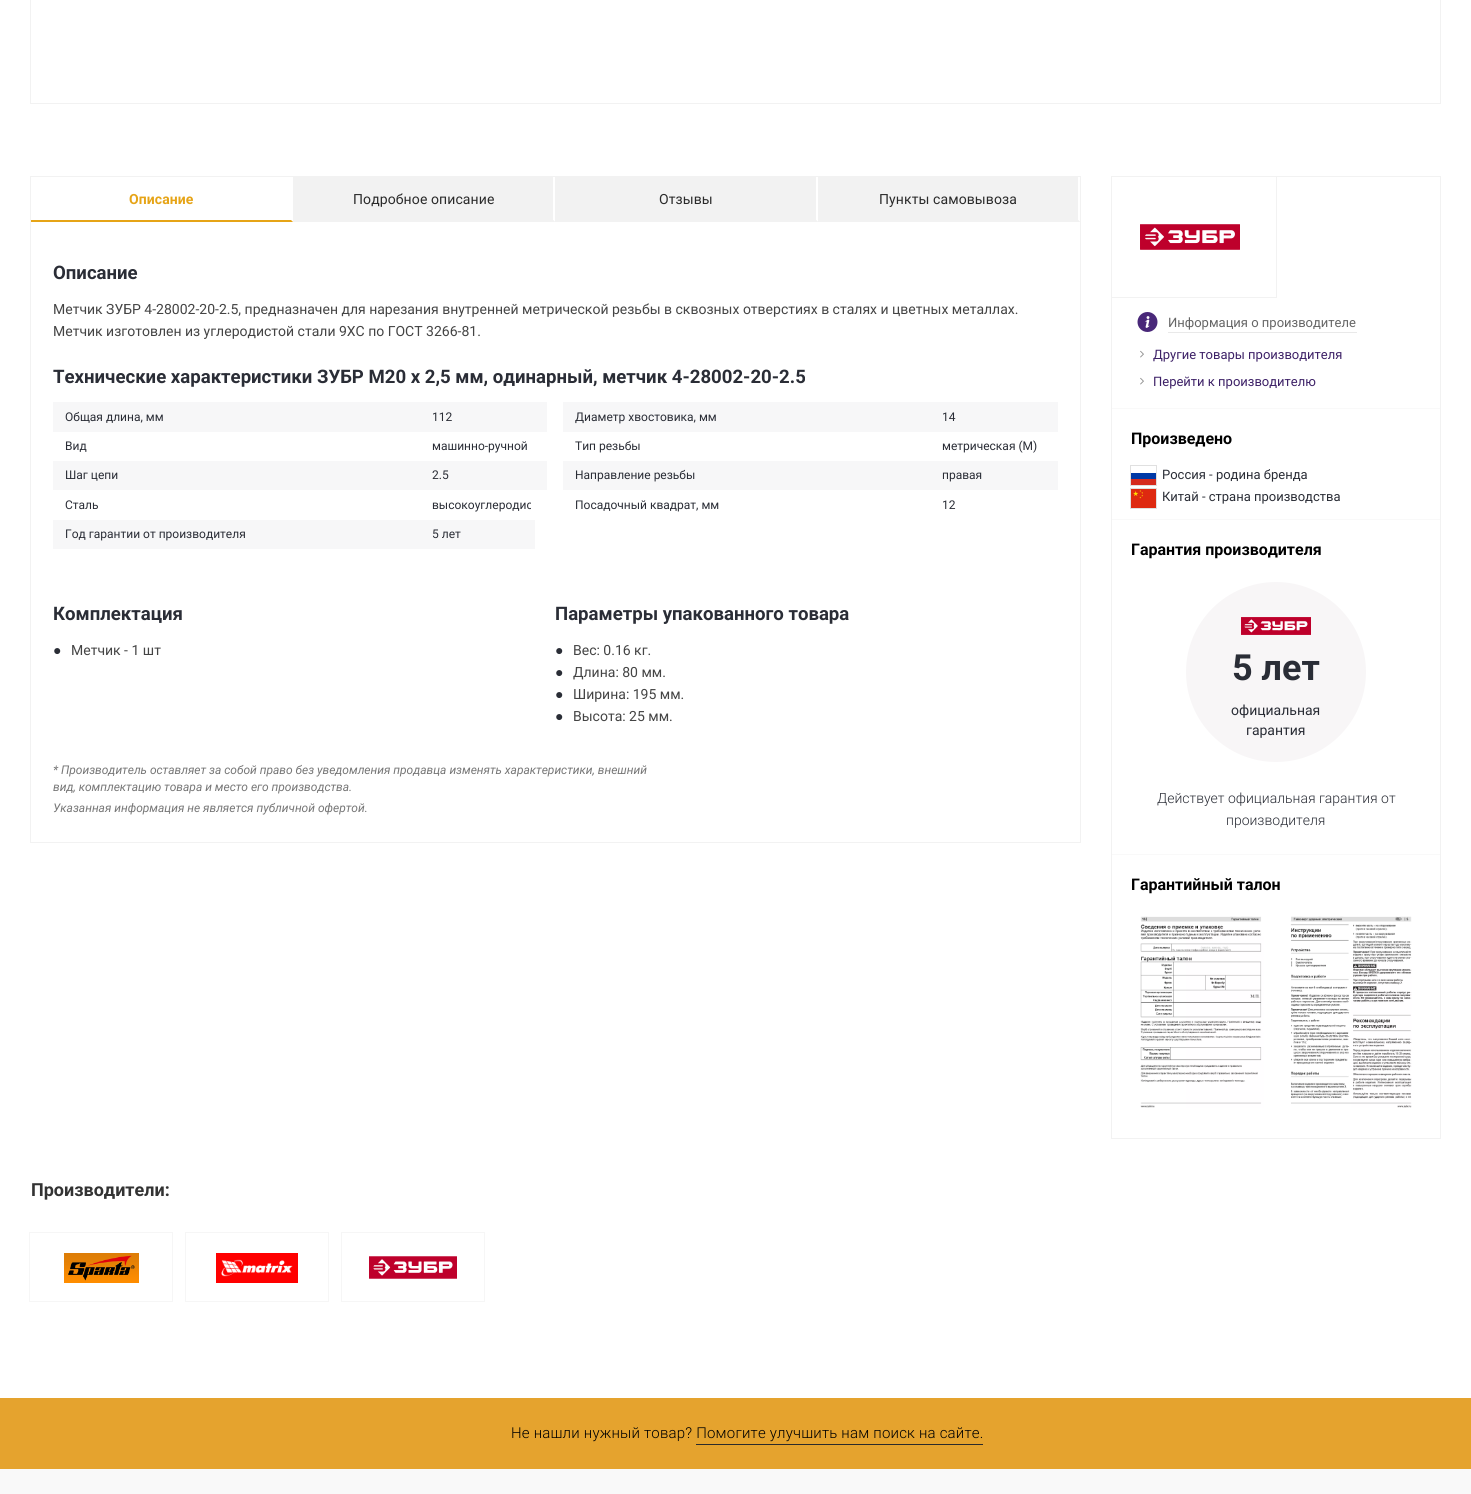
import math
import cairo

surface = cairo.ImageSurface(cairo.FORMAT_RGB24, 1471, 1494)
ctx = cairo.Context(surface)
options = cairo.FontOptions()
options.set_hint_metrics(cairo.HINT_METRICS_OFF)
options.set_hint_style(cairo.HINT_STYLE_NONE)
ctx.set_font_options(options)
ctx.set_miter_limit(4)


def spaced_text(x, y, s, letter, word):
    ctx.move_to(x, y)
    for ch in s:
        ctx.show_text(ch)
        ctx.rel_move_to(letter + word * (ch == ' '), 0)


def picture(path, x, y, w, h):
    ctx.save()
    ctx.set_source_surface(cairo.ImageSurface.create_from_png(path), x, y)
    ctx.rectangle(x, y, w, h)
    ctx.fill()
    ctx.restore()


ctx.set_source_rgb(1, 1, 1)
ctx.paint()
ctx.rectangle(30.5, -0.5, 1410, 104)
ctx.set_source_rgb(0.949, 0.949, 0.949)
ctx.set_line_width(1)
ctx.stroke()
ctx.rectangle(30.5, 176.5, 1050, 666)
ctx.stroke()
ctx.set_source_rgb(0.902, 0.643, 0.09)
ctx.new_path()
ctx.move_to(293, 222)
ctx.line_to(31, 222)
ctx.line_to(31, 220)
ctx.line_to(291, 220)
ctx.close_path()
ctx.fill()
ctx.select_font_face("Roboto", cairo.FONT_SLANT_NORMAL, cairo.FONT_WEIGHT_BOLD)
ctx.set_font_size(14)
spaced_text(129, 204, "Описание", 0.1, 0)
ctx.set_source_rgb(0.949, 0.949, 0.949)
ctx.rectangle(293, 177, 787, 45)
ctx.fill()
ctx.set_source_rgb(1, 1, 1)
ctx.new_path()
ctx.move_to(555, 177)
ctx.line_to(555, 222)
ctx.line_to(553, 220)
ctx.line_to(553, 177)
ctx.close_path()
ctx.fill()
ctx.set_source_rgb(0.949, 0.949, 0.949)
ctx.new_path()
ctx.move_to(555, 222)
ctx.line_to(293, 222)
ctx.line_to(293, 220)
ctx.line_to(553, 220)
ctx.close_path()
ctx.fill()
ctx.select_font_face("Roboto")
ctx.set_source_rgb(0.165, 0.165, 0.165)
spaced_text(353, 204, "Подробное описание", 0.1, 0)
ctx.set_source_rgb(1, 1, 1)
ctx.new_path()
ctx.move_to(818, 177)
ctx.line_to(818, 222)
ctx.line_to(816, 220)
ctx.line_to(816, 177)
ctx.close_path()
ctx.fill()
ctx.set_source_rgb(0.949, 0.949, 0.949)
ctx.new_path()
ctx.move_to(818, 222)
ctx.line_to(555, 222)
ctx.line_to(555, 220)
ctx.line_to(816, 220)
ctx.close_path()
ctx.fill()
ctx.set_source_rgb(0.165, 0.165, 0.165)
spaced_text(659, 204, "Отзывы", 0.1, 0)
ctx.set_source_rgb(1, 1, 1)
ctx.new_path()
ctx.move_to(1080, 177)
ctx.line_to(1080, 222)
ctx.line_to(1078, 220)
ctx.line_to(1078, 177)
ctx.close_path()
ctx.fill()
ctx.set_source_rgb(0.949, 0.949, 0.949)
ctx.new_path()
ctx.move_to(1080, 222)
ctx.line_to(818, 222)
ctx.line_to(818, 220)
ctx.line_to(1078, 220)
ctx.close_path()
ctx.fill()
ctx.set_source_rgb(0.165, 0.165, 0.165)
spaced_text(879, 204, "Пункты самовывоза", 0.1, 0)
ctx.select_font_face("Roboto", cairo.FONT_SLANT_NORMAL, cairo.FONT_WEIGHT_BOLD)
ctx.set_font_size(18.6)
ctx.set_source_rgb(0.165, 0.176, 0.212)
ctx.move_to(53, 279)
ctx.show_text("Описание")
ctx.select_font_face("Roboto")
ctx.set_font_size(14)
ctx.set_source_rgb(0.267, 0.267, 0.267)
ctx.move_to(53, 314)
ctx.show_text("Метчик ЗУБР 4-28002-20-2.5, предназначен для нарезания внутренней метрической резьбы в сквозных отверстиях в сталях и цветных металлах.")
ctx.move_to(53, 336)
ctx.show_text("Метчик изготовлен из углеродистой стали 9ХС по ГОСТ 3266-81.")
ctx.select_font_face("Roboto", cairo.FONT_SLANT_NORMAL, cairo.FONT_WEIGHT_BOLD)
ctx.set_font_size(18.6)
ctx.set_source_rgb(0.165, 0.176, 0.212)
ctx.move_to(53, 383)
ctx.show_text("Технические характеристики ЗУБР М20 x 2,5 мм, одинарный, метчик 4-28002-20-2.5")
ctx.set_source_rgb(0.965, 0.965, 0.969)
ctx.rectangle(53, 402, 494, 30)
ctx.fill()
ctx.select_font_face("Roboto")
ctx.set_font_size(12)
ctx.set_source_rgb(0.165, 0.176, 0.212)
ctx.move_to(65, 421)
ctx.show_text("Общая длина, мм")
ctx.move_to(432, 421)
ctx.show_text("112")
ctx.set_source_rgb(0.965, 0.965, 0.969)
ctx.rectangle(563, 402, 495, 30)
ctx.fill()
ctx.set_source_rgb(0.165, 0.176, 0.212)
ctx.move_to(575, 421)
ctx.show_text("Диаметр хвостовика, мм")
ctx.move_to(942, 421)
ctx.show_text("14")
ctx.move_to(65, 450)
ctx.show_text("Вид")
ctx.move_to(432, 450)
ctx.show_text("машинно-ручной")
ctx.move_to(575, 450)
ctx.show_text("Тип резьбы")
ctx.move_to(942, 450)
ctx.show_text("метрическая (М)")
ctx.set_source_rgb(0.965, 0.965, 0.969)
ctx.rectangle(53, 461, 494, 29)
ctx.fill()
ctx.set_source_rgb(0.165, 0.176, 0.212)
ctx.move_to(65, 479)
ctx.show_text("Шаг цепи")
ctx.move_to(432, 479)
ctx.show_text("2.5")
ctx.set_source_rgb(0.965, 0.965, 0.969)
ctx.rectangle(563, 461, 495, 29)
ctx.fill()
ctx.set_source_rgb(0.165, 0.176, 0.212)
ctx.move_to(575, 479)
ctx.show_text("Направление резьбы")
ctx.move_to(942, 479)
ctx.show_text("правая")
ctx.move_to(65, 509)
ctx.show_text("Сталь")
ctx.save()
ctx.rectangle(432, 498, 99, 14)
ctx.clip()
ctx.move_to(432, 509)
ctx.show_text("высокоуглеродис")
ctx.restore()
ctx.move_to(575, 509)
ctx.show_text("Посадочный квадрат, мм")
ctx.move_to(942, 509)
ctx.show_text("12")
ctx.set_source_rgb(0.965, 0.965, 0.969)
ctx.rectangle(53, 520, 482, 29)
ctx.fill()
ctx.set_source_rgb(0.165, 0.176, 0.212)
ctx.move_to(65, 538)
ctx.show_text("Год гарантии от производителя")
ctx.move_to(432, 538)
ctx.show_text("5 лет")
ctx.select_font_face("Roboto", cairo.FONT_SLANT_NORMAL, cairo.FONT_WEIGHT_BOLD)
ctx.set_font_size(18.6)
ctx.move_to(53, 620)
ctx.show_text("Комплектация")
ctx.select_font_face("Liberation Sans")
ctx.set_font_size(14)
ctx.move_to(53, 655)
ctx.show_text("●")
ctx.select_font_face("Roboto")
ctx.set_source_rgb(0.267, 0.267, 0.267)
ctx.move_to(71, 655)
ctx.show_text("Метчик - 1 шт")
ctx.select_font_face("Roboto", cairo.FONT_SLANT_NORMAL, cairo.FONT_WEIGHT_BOLD)
ctx.set_font_size(18.6)
ctx.set_source_rgb(0.165, 0.176, 0.212)
ctx.move_to(555, 620)
ctx.show_text("Параметры упакованного товара")
ctx.select_font_face("Liberation Sans")
ctx.set_font_size(14)
ctx.move_to(555, 655)
ctx.show_text("●")
ctx.select_font_face("Roboto")
ctx.set_source_rgb(0.267, 0.267, 0.267)
ctx.move_to(573, 655)
ctx.show_text("Вес: 0.16 кг.")
ctx.select_font_face("Liberation Sans")
ctx.set_source_rgb(0.165, 0.176, 0.212)
ctx.move_to(555, 677)
ctx.show_text("●")
ctx.select_font_face("Roboto")
ctx.set_source_rgb(0.267, 0.267, 0.267)
ctx.move_to(573, 677)
ctx.show_text("Длина: 80 мм.")
ctx.select_font_face("Liberation Sans")
ctx.set_source_rgb(0.165, 0.176, 0.212)
ctx.move_to(555, 699)
ctx.show_text("●")
ctx.select_font_face("Roboto")
ctx.set_source_rgb(0.267, 0.267, 0.267)
ctx.move_to(573, 699)
ctx.show_text("Ширина: 195 мм.")
ctx.select_font_face("Liberation Sans")
ctx.set_source_rgb(0.165, 0.176, 0.212)
ctx.move_to(555, 721)
ctx.show_text("●")
ctx.select_font_face("Roboto")
ctx.set_source_rgb(0.267, 0.267, 0.267)
ctx.move_to(573, 721)
ctx.show_text("Высота: 25 мм.")
ctx.select_font_face("Roboto", cairo.FONT_SLANT_ITALIC)
ctx.set_font_size(12)
ctx.set_source_rgb(0.467, 0.467, 0.467)
ctx.move_to(53, 774)
ctx.show_text("* Производитель оставляет за собой право без уведомления продавца изменять характеристики, внешний")
ctx.move_to(53, 791)
ctx.show_text("вид, комплектацию товара и место его производства.")
ctx.move_to(53, 812)
ctx.show_text("Указанная информация не является публичной офертой.")
ctx.rectangle(1111.5, 176.5, 329, 962)
ctx.set_source_rgb(0.949, 0.949, 0.949)
ctx.stroke()
ctx.rectangle(1111.5, 176.5, 165, 121)
ctx.stroke()
picture("img1.png", 1140, 224, 100, 26)
ctx.set_source_rgb(0.976, 0.976, 0.976)
ctx.rectangle(1112, 408, 328, 1)
ctx.fill()
picture("img2.png", 1137, 312, 21, 20)
ctx.select_font_face("Roboto")
ctx.set_font_size(13)
ctx.set_source_rgb(0.4, 0.4, 0.4)
ctx.move_to(1168, 327)
ctx.show_text("Информация о производителе")
ctx.set_source_rgb(0.914, 0.914, 0.914)
ctx.rectangle(1168, 332, 189, 1)
ctx.fill()
picture("img3.png", 1140, 350, 4, 8)
ctx.set_source_rgb(0.239, 0.129, 0.404)
ctx.move_to(1153, 359)
ctx.show_text("Другие товары производителя")
picture("img3.png", 1140, 377, 4, 8)
ctx.move_to(1153, 386)
ctx.show_text("Перейти к производителю")
ctx.select_font_face("Roboto", cairo.FONT_SLANT_NORMAL, cairo.FONT_WEIGHT_BOLD)
ctx.set_font_size(16)
ctx.set_source_rgb(0, 0, 0)
ctx.move_to(1131, 444)
ctx.show_text("Произведено")
ctx.rectangle(1130.5, 465.5, 26, 20)
ctx.set_source_rgb(0.878, 0.878, 0.878)
ctx.stroke()
ctx.select_font_face("Roboto")
ctx.set_font_size(13)
ctx.set_source_rgb(0.165, 0.176, 0.212)
ctx.move_to(1162, 479)
ctx.show_text("Россия - родина бренда")
ctx.set_source_rgb(0, 0.224, 0.651)
ctx.rectangle(1131, 473, 25, 6)
ctx.fill()
ctx.set_source_rgb(0.835, 0.169, 0.118)
ctx.rectangle(1131, 479, 25, 6)
ctx.fill()
ctx.rectangle(1130.5, 488.5, 26, 20)
ctx.set_source_rgb(0.878, 0.878, 0.878)
ctx.stroke()
picture("img4.png", 1131, 489, 25, 19)
ctx.set_source_rgb(0.165, 0.176, 0.212)
ctx.move_to(1162, 501)
ctx.show_text("Китай - страна производства")
ctx.set_source_rgb(0.976, 0.976, 0.976)
ctx.rectangle(1112, 519, 328, 1)
ctx.fill()
ctx.select_font_face("Roboto", cairo.FONT_SLANT_NORMAL, cairo.FONT_WEIGHT_BOLD)
ctx.set_font_size(16)
ctx.set_source_rgb(0, 0, 0)
ctx.move_to(1131, 555)
ctx.show_text("Гарантия производителя")
ctx.set_source_rgb(0.976, 0.976, 0.976)
ctx.rectangle(1112, 854, 328, 1)
ctx.fill()
ctx.set_source_rgb(0.969, 0.961, 0.965)
ctx.arc(1276, 672, 90, 0, 2 * math.pi)
ctx.fill()
picture("img5.png", 1241, 617, 70, 18)
ctx.set_font_size(36)
ctx.set_source_rgb(0.165, 0.176, 0.212)
ctx.move_to(1232, 680)
ctx.show_text("5 лет")
ctx.select_font_face("Roboto")
ctx.set_font_size(14)
ctx.move_to(1231, 715)
ctx.show_text("официальная")
ctx.move_to(1246, 735)
ctx.show_text("гарантия")
ctx.select_font_face("Roboto Light")
ctx.move_to(1157, 803)
ctx.show_text("Действует официальная гарантия от")
ctx.move_to(1226, 825)
ctx.show_text("производителя")
ctx.select_font_face("Roboto", cairo.FONT_SLANT_NORMAL, cairo.FONT_WEIGHT_BOLD)
ctx.set_font_size(16)
ctx.set_source_rgb(0, 0, 0)
ctx.move_to(1131, 890)
ctx.show_text("Гарантийный талон")
picture("img6.png", 1140, 916, 272, 192)
ctx.set_font_size(18)
ctx.set_source_rgb(0.2, 0.2, 0.2)
ctx.move_to(31, 1196)
ctx.show_text("Производители:")
ctx.rectangle(29.5, 1232.5, 143, 69)
ctx.set_source_rgb(0.961, 0.961, 0.961)
ctx.stroke()
picture("img7.png", 64, 1253, 75, 30)
ctx.rectangle(185.5, 1232.5, 143, 69)
ctx.stroke()
picture("img8.png", 216, 1253, 82, 30)
ctx.rectangle(341.5, 1232.5, 143, 69)
ctx.stroke()
picture("img9.png", 369, 1256, 88, 23)
ctx.set_source_rgb(0.898, 0.639, 0.18)
ctx.rectangle(0, 1398, 1471, 71)
ctx.fill()
ctx.select_font_face("Roboto Light")
ctx.set_font_size(15)
ctx.set_source_rgb(0, 0, 0)
spaced_text(511, 1438, "Не нашли нужный товар? Помогите улучшить нам поиск на сайте.", 0.2, 0)
ctx.set_source_rgb(0.169, 0.169, 0.169)
ctx.rectangle(696, 1444, 287, 1)
ctx.fill()
ctx.set_source_rgb(0.976, 0.976, 0.976)
ctx.rectangle(0, 1469, 1471, 25)
ctx.fill()
surface.write_to_png("page.png")
